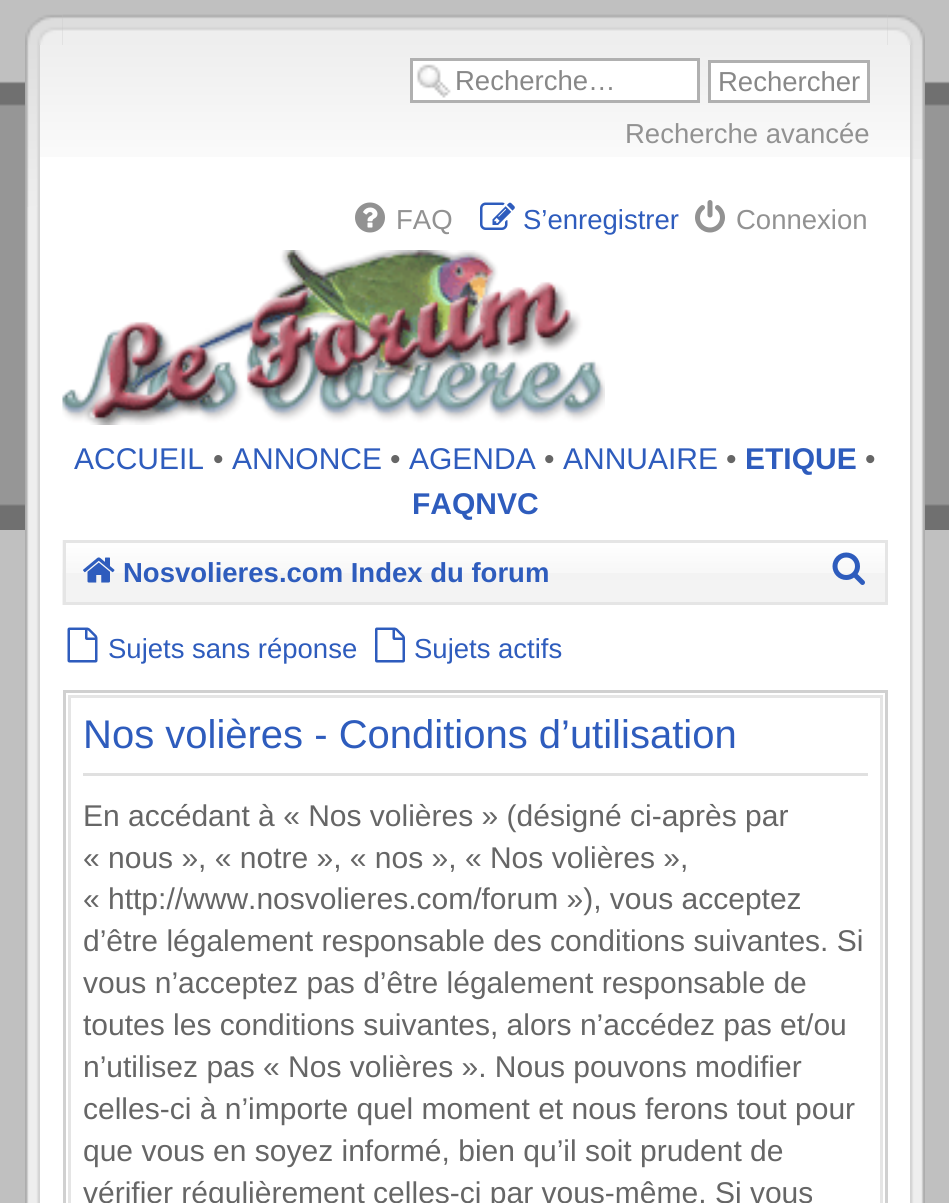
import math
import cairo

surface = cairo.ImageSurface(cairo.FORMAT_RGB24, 949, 1203)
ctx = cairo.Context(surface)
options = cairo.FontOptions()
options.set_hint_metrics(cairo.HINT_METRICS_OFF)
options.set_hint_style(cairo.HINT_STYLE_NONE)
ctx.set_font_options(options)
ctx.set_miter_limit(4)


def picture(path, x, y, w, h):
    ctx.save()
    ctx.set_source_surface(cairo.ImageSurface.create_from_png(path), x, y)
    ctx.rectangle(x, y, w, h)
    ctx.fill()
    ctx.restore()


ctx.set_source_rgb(0.753, 0.753, 0.753)
ctx.paint()
picture("img1.png", 0, 81, 949, 449)
picture("img2.png", 25, 14, 38, 31)
picture("img3.png", 887, 14, 38, 31)
picture("img4.png", 62, 14, 826, 31)
picture("img5.png", 25, 45, 15, 1158)
picture("img6.png", 910, 45, 15, 1158)
picture("img7.png", 27, 45, 11, 162)
picture("img8.png", 912, 45, 11, 114)
ctx.set_source_rgb(1, 1, 1)
ctx.rectangle(40, 157, 870, 1046)
ctx.fill()
picture("img9.png", 40, 45, 870, 112)
ctx.rectangle(413, 61, 284, 39)
ctx.fill()
picture("img10.png", 416, 64, 35, 34)
ctx.rectangle(411.5, 59.5, 287, 42)
ctx.set_source_rgb(0.69, 0.69, 0.69)
ctx.set_line_width(3)
ctx.stroke()
ctx.select_font_face("Liberation Sans")
ctx.set_font_size(27.5)
ctx.set_source_rgb(0.533, 0.533, 0.533)
ctx.move_to(455, 90)
ctx.show_text("Recherche…")
ctx.set_source_rgb(1, 1, 1)
ctx.rectangle(709.5, 61.5, 159, 40)
ctx.fill_preserve()
ctx.set_source_rgb(0.69, 0.69, 0.69)
ctx.stroke()
ctx.set_source_rgb(0.533, 0.533, 0.533)
ctx.move_to(718, 91)
ctx.show_text("Rechercher")
ctx.set_source_rgb(0.573, 0.573, 0.573)
ctx.move_to(625, 143)
ctx.show_text("Recherche avancée")
picture("img11.png", 355, 202, 30, 31)
ctx.move_to(396, 229)
ctx.show_text("FAQ")
picture("img12.png", 480, 202, 35, 28)
ctx.set_source_rgb(0.18, 0.361, 0.741)
ctx.move_to(523, 229)
ctx.show_text("S’enregistrer")
picture("img13.png", 695, 200, 30, 33)
ctx.set_source_rgb(0.573, 0.573, 0.573)
ctx.move_to(736, 229)
ctx.show_text("Connexion")
picture("img14.png", 62, 250, 543, 175)
ctx.set_font_size(30)
ctx.set_source_rgb(0.18, 0.361, 0.741)
ctx.move_to(74, 469)
ctx.show_text("ACCUEIL")
ctx.set_source_rgb(0.4, 0.4, 0.4)
ctx.move_to(213, 469)
ctx.show_text("•")
ctx.set_source_rgb(0.18, 0.361, 0.741)
ctx.move_to(232, 469)
ctx.show_text("ANNONCE")
ctx.set_source_rgb(0.4, 0.4, 0.4)
ctx.move_to(390, 469)
ctx.show_text("•")
ctx.set_source_rgb(0.18, 0.361, 0.741)
ctx.move_to(409, 469)
ctx.show_text("AGENDA")
ctx.set_source_rgb(0.4, 0.4, 0.4)
ctx.move_to(544, 469)
ctx.show_text("•")
ctx.set_source_rgb(0.18, 0.361, 0.741)
ctx.move_to(563, 469)
ctx.show_text("ANNUAIRE")
ctx.set_source_rgb(0.4, 0.4, 0.4)
ctx.move_to(726, 469)
ctx.show_text("•")
ctx.select_font_face("Liberation Sans", cairo.FONT_SLANT_NORMAL, cairo.FONT_WEIGHT_BOLD)
ctx.set_source_rgb(0.18, 0.361, 0.741)
ctx.move_to(745, 469)
ctx.show_text("ETIQUE")
ctx.select_font_face("Liberation Sans")
ctx.set_source_rgb(0.4, 0.4, 0.4)
ctx.move_to(865, 469)
ctx.show_text("•")
ctx.select_font_face("Liberation Sans", cairo.FONT_SLANT_NORMAL, cairo.FONT_WEIGHT_BOLD)
ctx.set_source_rgb(0.18, 0.361, 0.741)
ctx.move_to(412, 514)
ctx.show_text("FAQNVC")
ctx.set_source_rgb(0.953, 0.953, 0.953)
ctx.rectangle(62, 540, 823, 65)
ctx.fill()
picture("img15.png", 62, 540, 823, 33)
ctx.rectangle(64.5, 541.5, 822, 62)
ctx.set_source_rgb(0.898, 0.898, 0.898)
ctx.stroke()
picture("img16.png", 83, 557, 32, 26)
ctx.set_font_size(27.5)
ctx.set_source_rgb(0.18, 0.361, 0.741)
ctx.move_to(123, 582)
ctx.show_text("Nosvolieres.com Index du forum")
picture("img17.png", 832, 552, 33, 33)
picture("img18.png", 67, 627, 31, 36)
ctx.select_font_face("Liberation Sans")
ctx.move_to(108, 658)
ctx.show_text("Sujets sans réponse")
picture("img19.png", 375, 627, 30, 36)
ctx.move_to(414, 658)
ctx.show_text("Sujets actifs")
ctx.rectangle(64.5, 691.5, 822, 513)
ctx.set_source_rgb(0.816, 0.816, 0.816)
ctx.stroke()
ctx.rectangle(69.5, 696.5, 812, 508)
ctx.set_source_rgb(0.898, 0.898, 0.898)
ctx.stroke()
ctx.set_source_rgb(0.878, 0.878, 0.878)
ctx.rectangle(83, 773, 785, 3)
ctx.fill()
ctx.set_font_size(40)
ctx.set_source_rgb(0.18, 0.361, 0.741)
ctx.move_to(83, 748)
ctx.show_text("Nos volières - Conditions d’utilisation")
ctx.set_font_size(30)
ctx.set_source_rgb(0.4, 0.4, 0.4)
ctx.move_to(83, 826)
ctx.show_text("En accédant à « Nos volières » (désigné ci-après par")
ctx.move_to(83, 868)
ctx.show_text("« nous », « notre », « nos », « Nos volières »,")
ctx.move_to(83, 909)
ctx.show_text("« http://www.nosvolieres.com/forum »), vous acceptez")
ctx.move_to(83, 951)
ctx.show_text("d’être légalement responsable des conditions suivantes. Si")
ctx.move_to(83, 993)
ctx.show_text("vous n’acceptez pas d’être légalement responsable de")
ctx.move_to(83, 1035)
ctx.show_text("toutes les conditions suivantes, alors n’accédez pas et/ou")
ctx.move_to(83, 1077)
ctx.show_text("n’utilisez pas « Nos volières ». Nous pouvons modifier")
ctx.move_to(83, 1119)
ctx.show_text("celles-ci à n’importe quel moment et nous ferons tout pour")
ctx.move_to(83, 1161)
ctx.show_text("que vous en soyez informé, bien qu’il soit prudent de")
ctx.move_to(83, 1203)
ctx.show_text("vérifier régulièrement celles-ci par vous-même. Si vous")
surface.write_to_png("page.png")
